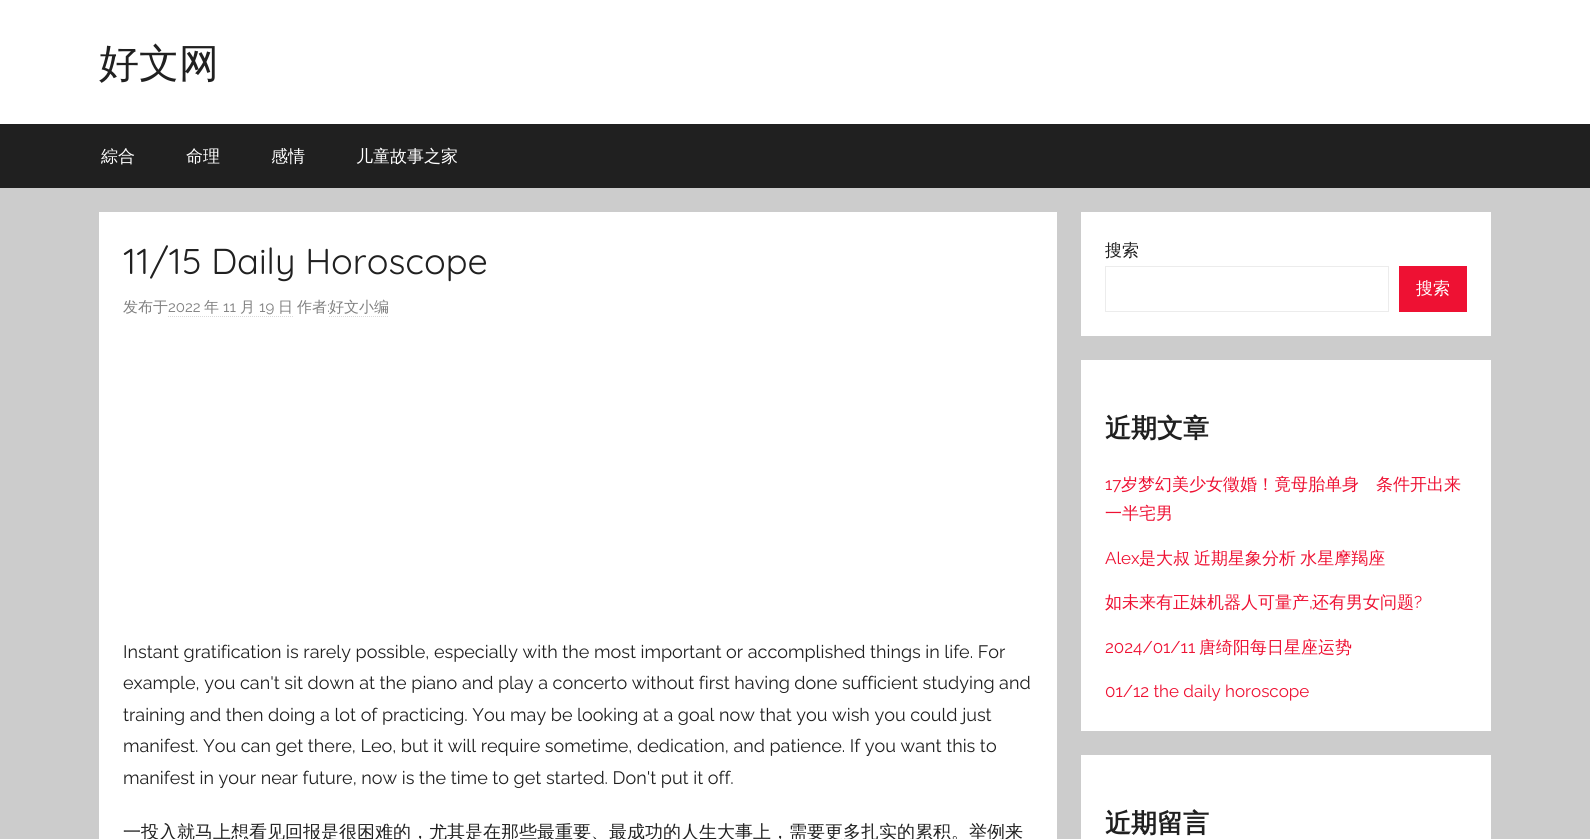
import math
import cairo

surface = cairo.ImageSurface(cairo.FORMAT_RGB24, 1590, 839)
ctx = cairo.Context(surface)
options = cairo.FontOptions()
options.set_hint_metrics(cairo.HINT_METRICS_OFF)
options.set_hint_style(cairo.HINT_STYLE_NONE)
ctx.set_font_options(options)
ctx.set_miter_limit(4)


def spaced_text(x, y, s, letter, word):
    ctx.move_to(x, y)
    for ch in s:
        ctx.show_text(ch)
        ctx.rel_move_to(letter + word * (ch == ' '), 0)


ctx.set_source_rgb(0.8, 0.8, 0.8)
ctx.paint()
ctx.set_source_rgb(1, 1, 1)
ctx.rectangle(0, 0, 1590, 124)
ctx.fill()
ctx.select_font_face("WenQuanYi Zen Hei Medium")
ctx.set_font_size(40)
ctx.set_source_rgb(0.125, 0.125, 0.125)
ctx.move_to(99, 77)
ctx.show_text("好文网")
ctx.rectangle(0, 124, 1590, 64)
ctx.fill()
ctx.set_font_size(17)
ctx.set_source_rgb(1, 1, 1)
ctx.move_to(101, 162)
ctx.show_text("綜合")
ctx.move_to(186, 162)
ctx.show_text("命理")
ctx.move_to(271, 162)
ctx.show_text("感情")
ctx.move_to(356, 162)
ctx.show_text("儿童故事之家")
ctx.rectangle(99, 212, 958, 627)
ctx.fill()
ctx.select_font_face("Quicksand")
ctx.set_font_size(36)
ctx.set_source_rgb(0.125, 0.125, 0.125)
ctx.move_to(123, 274)
ctx.show_text("11/15 Daily Horoscope")
ctx.select_font_face("WenQuanYi Zen Hei Medium")
ctx.set_font_size(15)
ctx.set_source_rgb(0.502, 0.502, 0.502)
ctx.move_to(123, 312)
ctx.show_text("发布于")
ctx.select_font_face("Raleway")
ctx.move_to(168, 312)
ctx.show_text("2022")
ctx.select_font_face("WenQuanYi Zen Hei Medium")
ctx.move_to(204, 312)
ctx.show_text("年")
ctx.select_font_face("Raleway")
ctx.move_to(223, 312)
ctx.show_text("11")
ctx.select_font_face("WenQuanYi Zen Hei Medium")
ctx.move_to(240, 312)
ctx.show_text("月")
ctx.select_font_face("Raleway")
ctx.move_to(259, 312)
ctx.show_text("19")
ctx.new_path()
ctx.move_to(168, 316.5)
ctx.line_to(293, 316.5)
ctx.set_source_rgb(0.851, 0.851, 0.851)
ctx.set_line_width(1)
ctx.set_dash([1, 1])
ctx.stroke()
ctx.select_font_face("WenQuanYi Zen Hei Medium")
ctx.set_source_rgb(0.502, 0.502, 0.502)
ctx.move_to(278, 312)
ctx.show_text("日")
ctx.move_to(297, 312)
ctx.show_text("作者")
ctx.select_font_face("Raleway")
ctx.move_to(327, 312)
ctx.show_text(":")
ctx.new_path()
ctx.move_to(329, 316.5)
ctx.line_to(389, 316.5)
ctx.set_source_rgb(0.851, 0.851, 0.851)
ctx.stroke()
ctx.select_font_face("WenQuanYi Zen Hei Medium")
ctx.set_source_rgb(0.502, 0.502, 0.502)
ctx.move_to(329, 312)
ctx.show_text("好文小编")
ctx.select_font_face("Raleway")
ctx.set_font_size(18)
ctx.set_source_rgb(0.125, 0.125, 0.125)
ctx.move_to(123, 658)
ctx.show_text("Instant gratification is rarely possible, especially with the most important or accomplished things in life. For")
ctx.move_to(123, 689)
ctx.show_text("example, you can't sit down at the piano and play a concerto without first having done sufficient studying and")
ctx.move_to(123, 721)
ctx.show_text("training and then doing a lot of practicing. You may be looking at a goal now that you wish you could just")
ctx.move_to(123, 752)
ctx.show_text("manifest. You can get there, Leo, but it will require sometime, dedication, and patience. If you want this to")
ctx.move_to(123, 784)
ctx.show_text("manifest in your near future, now is the time to get started. Don't put it off.")
ctx.select_font_face("WenQuanYi Zen Hei Medium")
ctx.move_to(123, 838)
ctx.show_text("一投入就马上想看见回报是很困难的，尤其是在那些最重要、最成功的人生大事上，需要更多扎实的累积。举例来")
ctx.set_source_rgb(1, 1, 1)
ctx.rectangle(1081, 212, 410, 124)
ctx.fill()
ctx.set_font_size(17)
ctx.set_source_rgb(0.125, 0.125, 0.125)
ctx.move_to(1105, 256)
ctx.show_text("搜索")
ctx.rectangle(1105.5, 266.5, 283, 45)
ctx.set_source_rgb(0.925, 0.925, 0.925)
ctx.set_dash([])
ctx.stroke()
ctx.set_source_rgb(0.933, 0.067, 0.2)
ctx.rectangle(1399, 266, 68, 46)
ctx.fill()
ctx.set_source_rgb(1, 1, 1)
ctx.move_to(1416, 294)
ctx.show_text("搜索")
ctx.rectangle(1081, 360, 410, 371)
ctx.fill()
ctx.select_font_face("WenQuanYi Zen Hei", cairo.FONT_SLANT_NORMAL, cairo.FONT_WEIGHT_BOLD)
ctx.set_font_size(26)
ctx.set_source_rgb(0.125, 0.125, 0.125)
ctx.move_to(1105, 437)
ctx.show_text("近期文章")
ctx.select_font_face("Raleway")
ctx.set_font_size(17)
ctx.set_source_rgb(0.933, 0.067, 0.2)
ctx.move_to(1105, 490)
ctx.show_text("17")
ctx.select_font_face("WenQuanYi Zen Hei Medium")
ctx.move_to(1121, 490)
ctx.show_text("岁梦幻美少女徵婚！竟母胎单身　条件开出来")
ctx.move_to(1105, 519)
ctx.show_text("一半宅男")
ctx.select_font_face("Raleway")
ctx.move_to(1105, 564)
ctx.show_text("Alex")
ctx.select_font_face("WenQuanYi Zen Hei Medium")
spaced_text(1139, 564, "是大叔 近期星象分析 水星摩羯座", 0, -1)
ctx.move_to(1105, 608)
ctx.show_text("如未来有正妹机器人可量产")
ctx.select_font_face("Raleway")
ctx.move_to(1309, 608)
ctx.show_text(",")
ctx.select_font_face("WenQuanYi Zen Hei Medium")
ctx.move_to(1312, 608)
ctx.show_text("还有男女问题")
ctx.select_font_face("Raleway")
ctx.move_to(1414, 608)
ctx.show_text("?")
ctx.move_to(1105, 653)
ctx.show_text("2024/01/11")
ctx.select_font_face("WenQuanYi Zen Hei Medium")
ctx.move_to(1199, 653)
ctx.show_text("唐绮阳每日星座运势")
ctx.select_font_face("Raleway")
ctx.move_to(1105, 697)
ctx.show_text("01/12 the daily horoscope")
ctx.set_source_rgb(1, 1, 1)
ctx.rectangle(1081, 755, 410, 84)
ctx.fill()
ctx.select_font_face("WenQuanYi Zen Hei", cairo.FONT_SLANT_NORMAL, cairo.FONT_WEIGHT_BOLD)
ctx.set_font_size(26)
ctx.set_source_rgb(0.125, 0.125, 0.125)
ctx.move_to(1105, 832)
ctx.show_text("近期留言")
surface.write_to_png("page.png")
